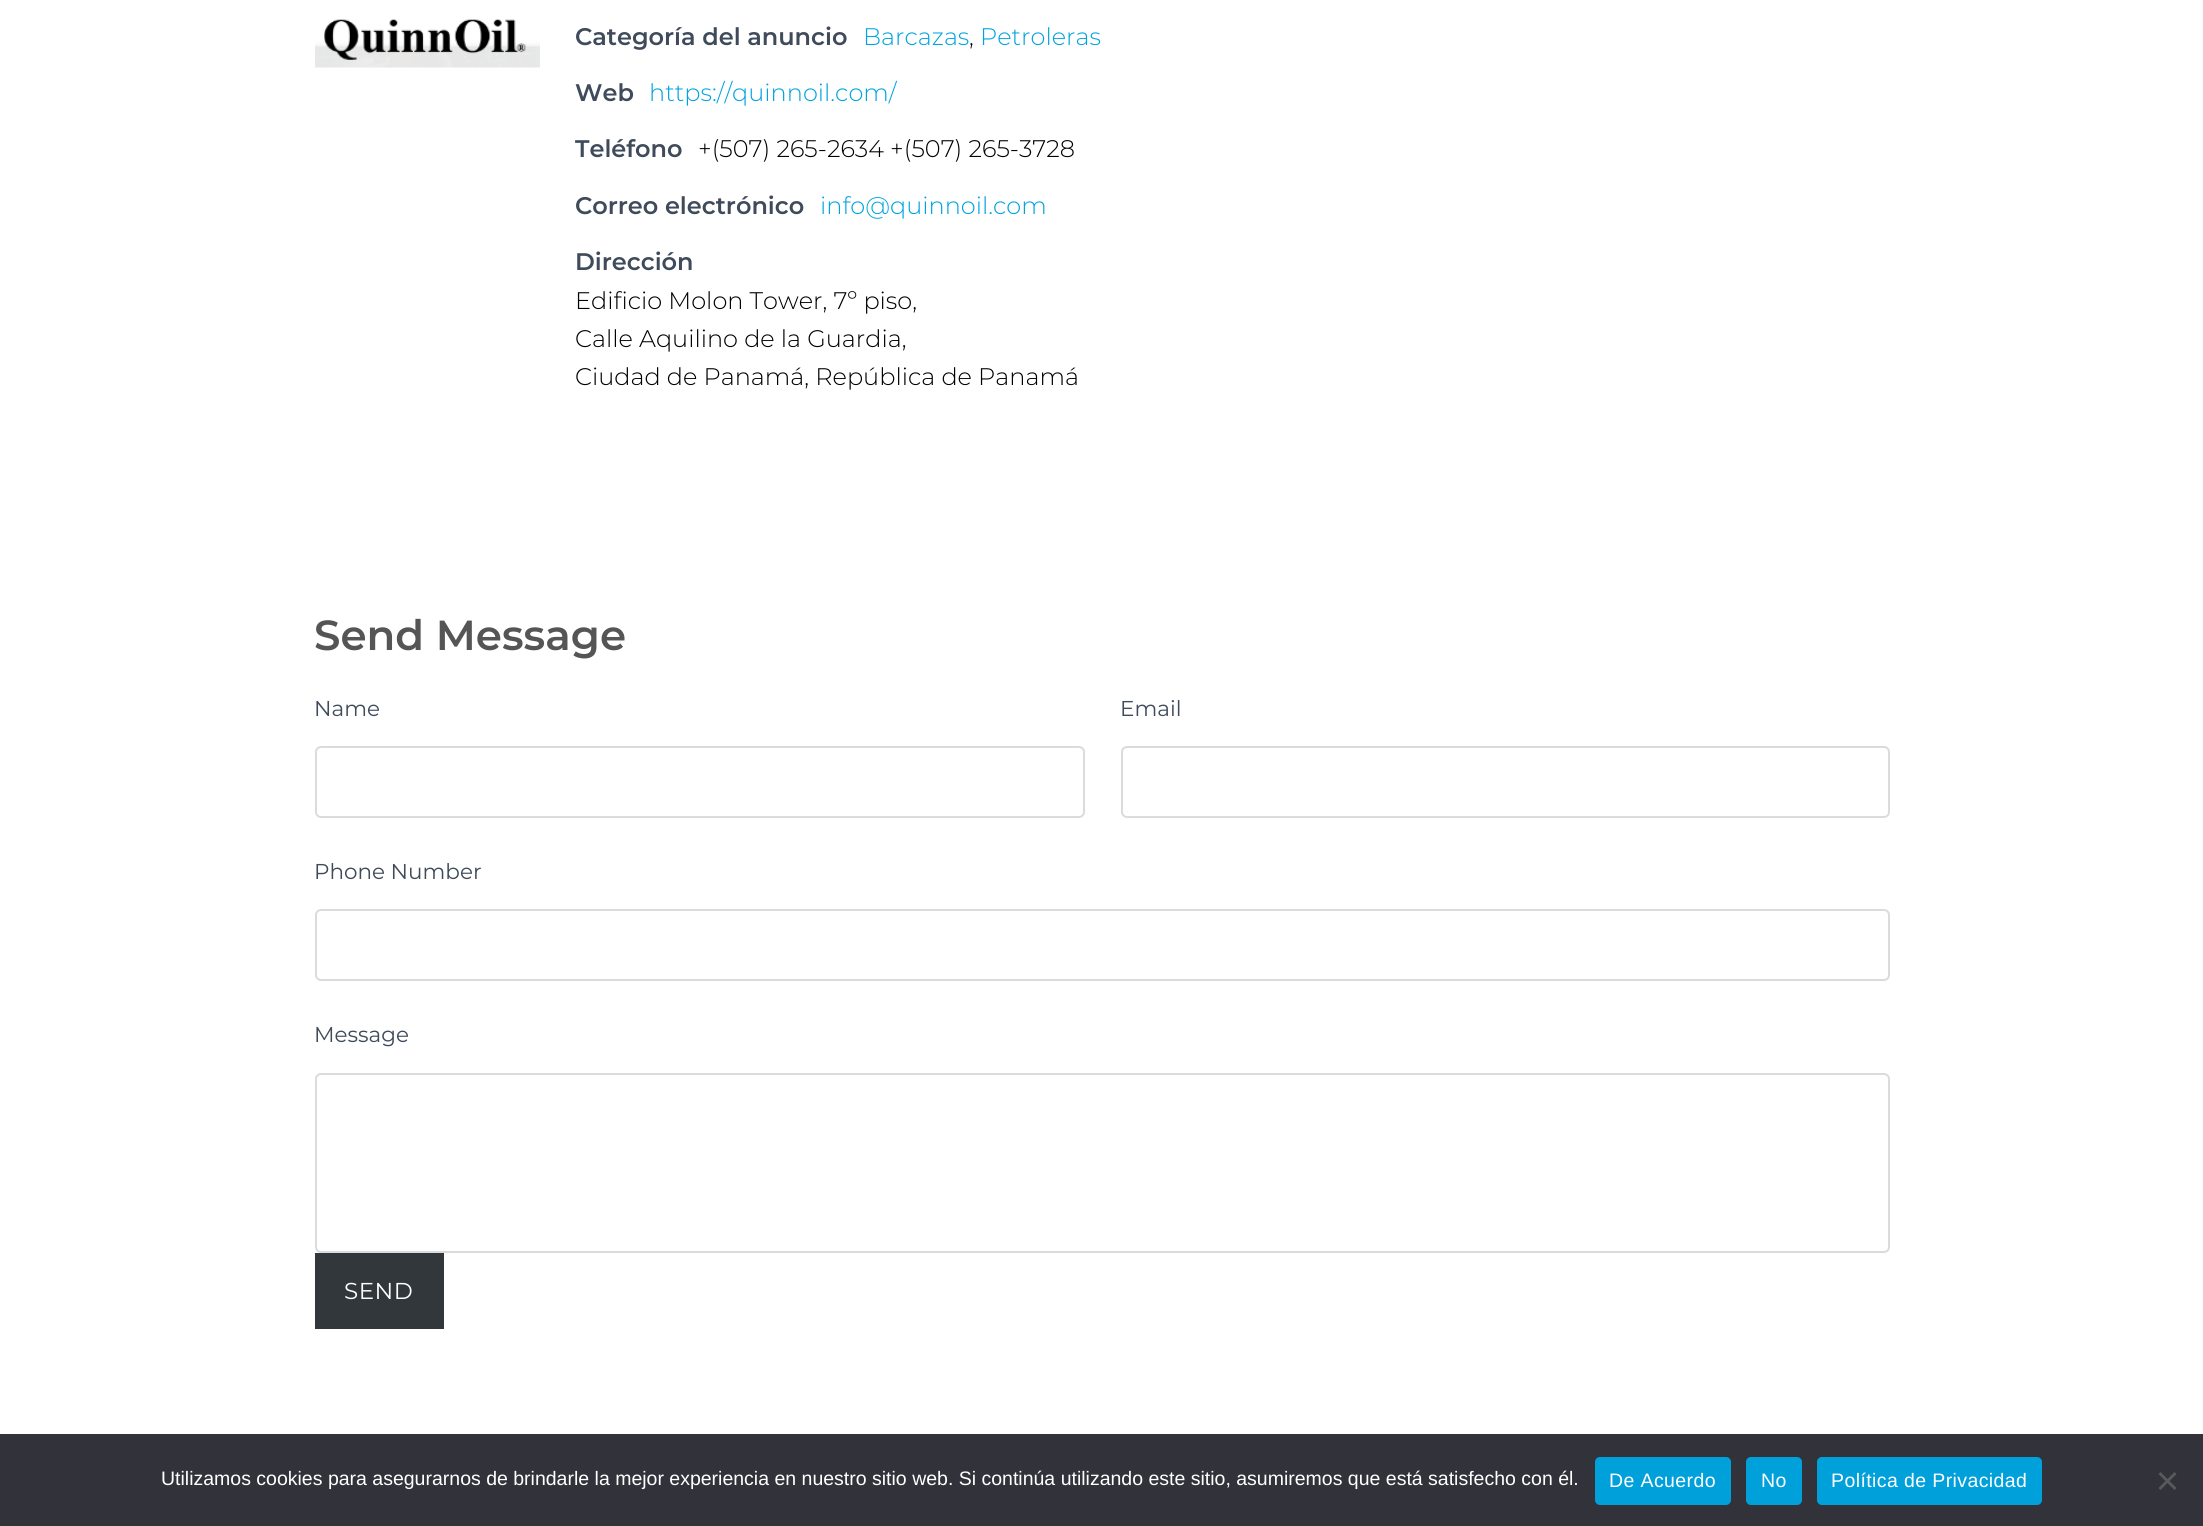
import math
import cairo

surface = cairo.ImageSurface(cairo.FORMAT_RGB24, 2203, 1526)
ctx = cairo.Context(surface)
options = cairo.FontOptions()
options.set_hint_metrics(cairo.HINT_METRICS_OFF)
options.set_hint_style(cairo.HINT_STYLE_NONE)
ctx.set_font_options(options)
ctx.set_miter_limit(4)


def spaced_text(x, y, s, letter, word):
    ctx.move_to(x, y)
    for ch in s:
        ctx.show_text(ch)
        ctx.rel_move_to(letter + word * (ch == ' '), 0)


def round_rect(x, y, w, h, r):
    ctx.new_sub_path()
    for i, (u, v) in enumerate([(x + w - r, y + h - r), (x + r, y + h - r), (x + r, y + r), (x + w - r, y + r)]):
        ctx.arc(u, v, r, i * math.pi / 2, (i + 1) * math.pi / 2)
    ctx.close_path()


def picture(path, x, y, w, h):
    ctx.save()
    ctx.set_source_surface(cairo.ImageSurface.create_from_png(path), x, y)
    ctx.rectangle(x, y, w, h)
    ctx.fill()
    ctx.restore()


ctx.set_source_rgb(1, 1, 1)
ctx.paint()
picture("img1.png", 315, 19, 225, 49)
ctx.select_font_face("Montserrat SemiBold")
ctx.set_font_size(24)
ctx.set_source_rgb(0.247, 0.294, 0.357)
ctx.move_to(575, 45)
ctx.show_text("Categoría del anuncio")
ctx.select_font_face("Montserrat Light")
ctx.set_source_rgb(0, 0.639, 0.878)
ctx.move_to(863, 45)
ctx.show_text("Barcazas")
ctx.set_source_rgb(0, 0, 0)
ctx.move_to(969, 45)
ctx.show_text(",")
ctx.set_source_rgb(0, 0.639, 0.878)
ctx.move_to(980, 45)
ctx.show_text("Petroleras")
ctx.select_font_face("Montserrat SemiBold")
ctx.set_source_rgb(0.247, 0.294, 0.357)
ctx.move_to(575, 101)
ctx.show_text("Web")
ctx.select_font_face("Montserrat Light")
ctx.set_source_rgb(0, 0.639, 0.878)
ctx.move_to(649, 101)
ctx.show_text("https://quinnoil.com/")
ctx.select_font_face("Montserrat SemiBold")
ctx.set_source_rgb(0.247, 0.294, 0.357)
ctx.move_to(575, 157)
ctx.show_text("Teléfono")
ctx.select_font_face("Montserrat Light")
ctx.set_source_rgb(0, 0, 0)
ctx.move_to(698, 157)
ctx.show_text("+(507) 265-2634 +(507) 265-3728")
ctx.select_font_face("Montserrat SemiBold")
ctx.set_source_rgb(0.247, 0.294, 0.357)
ctx.move_to(575, 214)
ctx.show_text("Correo electrónico")
ctx.select_font_face("Montserrat Light")
ctx.set_source_rgb(0, 0.639, 0.878)
ctx.move_to(820, 214)
ctx.show_text("info@quinnoil.com")
ctx.select_font_face("Montserrat SemiBold")
ctx.set_source_rgb(0.247, 0.294, 0.357)
ctx.move_to(575, 270)
ctx.show_text("Dirección")
ctx.select_font_face("Montserrat Light")
ctx.set_source_rgb(0, 0, 0)
ctx.move_to(575, 309)
ctx.show_text("Edificio Molon Tower, 7º piso,")
ctx.move_to(575, 347)
ctx.show_text("Calle Aquilino de la Guardia,")
ctx.move_to(575, 385)
ctx.show_text("Ciudad de Panamá, República de Panamá")
ctx.select_font_face("Montserrat SemiBold")
ctx.set_font_size(42)
ctx.set_source_rgb(0.333, 0.333, 0.333)
ctx.move_to(314, 650)
ctx.show_text("Send Message")
ctx.select_font_face("Montserrat")
ctx.set_font_size(21.5)
ctx.set_source_rgb(0.247, 0.294, 0.357)
ctx.move_to(314, 716)
ctx.show_text("Name")
round_rect(316, 747, 768, 70, 5)
ctx.set_source_rgb(0.851, 0.859, 0.871)
ctx.stroke()
ctx.set_source_rgb(0.247, 0.294, 0.357)
ctx.move_to(1120, 716)
ctx.show_text("Email")
round_rect(1122, 747, 767, 70, 5)
ctx.set_source_rgb(0.851, 0.859, 0.871)
ctx.stroke()
ctx.set_source_rgb(0.247, 0.294, 0.357)
ctx.move_to(314, 879)
ctx.show_text("Phone Number")
round_rect(316, 910, 1573, 70, 5)
ctx.set_source_rgb(0.851, 0.859, 0.871)
ctx.stroke()
ctx.set_source_rgb(0.247, 0.294, 0.357)
ctx.move_to(314, 1042)
ctx.show_text("Message")
round_rect(316, 1074, 1573, 178, 5)
ctx.set_source_rgb(0.851, 0.859, 0.871)
ctx.stroke()
ctx.set_source_rgb(0.196, 0.216, 0.235)
ctx.rectangle(315, 1253, 129, 76)
ctx.fill()
ctx.set_font_size(23)
ctx.set_source_rgb(1, 1, 1)
spaced_text(344, 1299, "SEND", 0.5, 0)
ctx.set_source_rgb(0.196, 0.196, 0.227)
ctx.rectangle(0, 1434, 2203, 92)
ctx.fill()
ctx.select_font_face("Liberation Sans")
ctx.set_font_size(19.5)
ctx.set_source_rgb(1, 1, 1)
ctx.move_to(161, 1485)
ctx.show_text("Utilizamos cookies para asegurarnos de brindarle la mejor experiencia en nuestro sitio web. Si continúa utilizando este sitio, asumiremos que está satisfecho con él.")
ctx.set_source_rgb(0, 0.627, 0.859)
round_rect(1595, 1457, 136, 48, 5)
ctx.fill()
ctx.set_source_rgb(1, 1, 1)
spaced_text(1609, 1487, "De Acuerdo", 0.4, 0)
ctx.set_source_rgb(0, 0.627, 0.859)
round_rect(1746, 1457, 56, 48, 5)
ctx.fill()
ctx.set_source_rgb(1, 1, 1)
spaced_text(1761, 1487, "No", 0.4, 0)
ctx.set_source_rgb(0, 0.627, 0.859)
round_rect(1817, 1457, 225, 48, 5)
ctx.fill()
ctx.set_source_rgb(1, 1, 1)
spaced_text(1831, 1487, "Política de Privacidad", 0.4, 0)
ctx.set_source_rgb(0.349, 0.349, 0.365)
ctx.new_path()
ctx.move_to(2174.5, 1472)
ctx.line_to(2176.5, 1474)
ctx.line_to(2160.5, 1490)
ctx.line_to(2158.5, 1488)
ctx.close_path()
ctx.fill()
ctx.new_path()
ctx.move_to(2158.5, 1474)
ctx.line_to(2160.5, 1472)
ctx.line_to(2176.5, 1488)
ctx.line_to(2174.5, 1490)
ctx.close_path()
ctx.fill()
surface.write_to_png("page.png")
